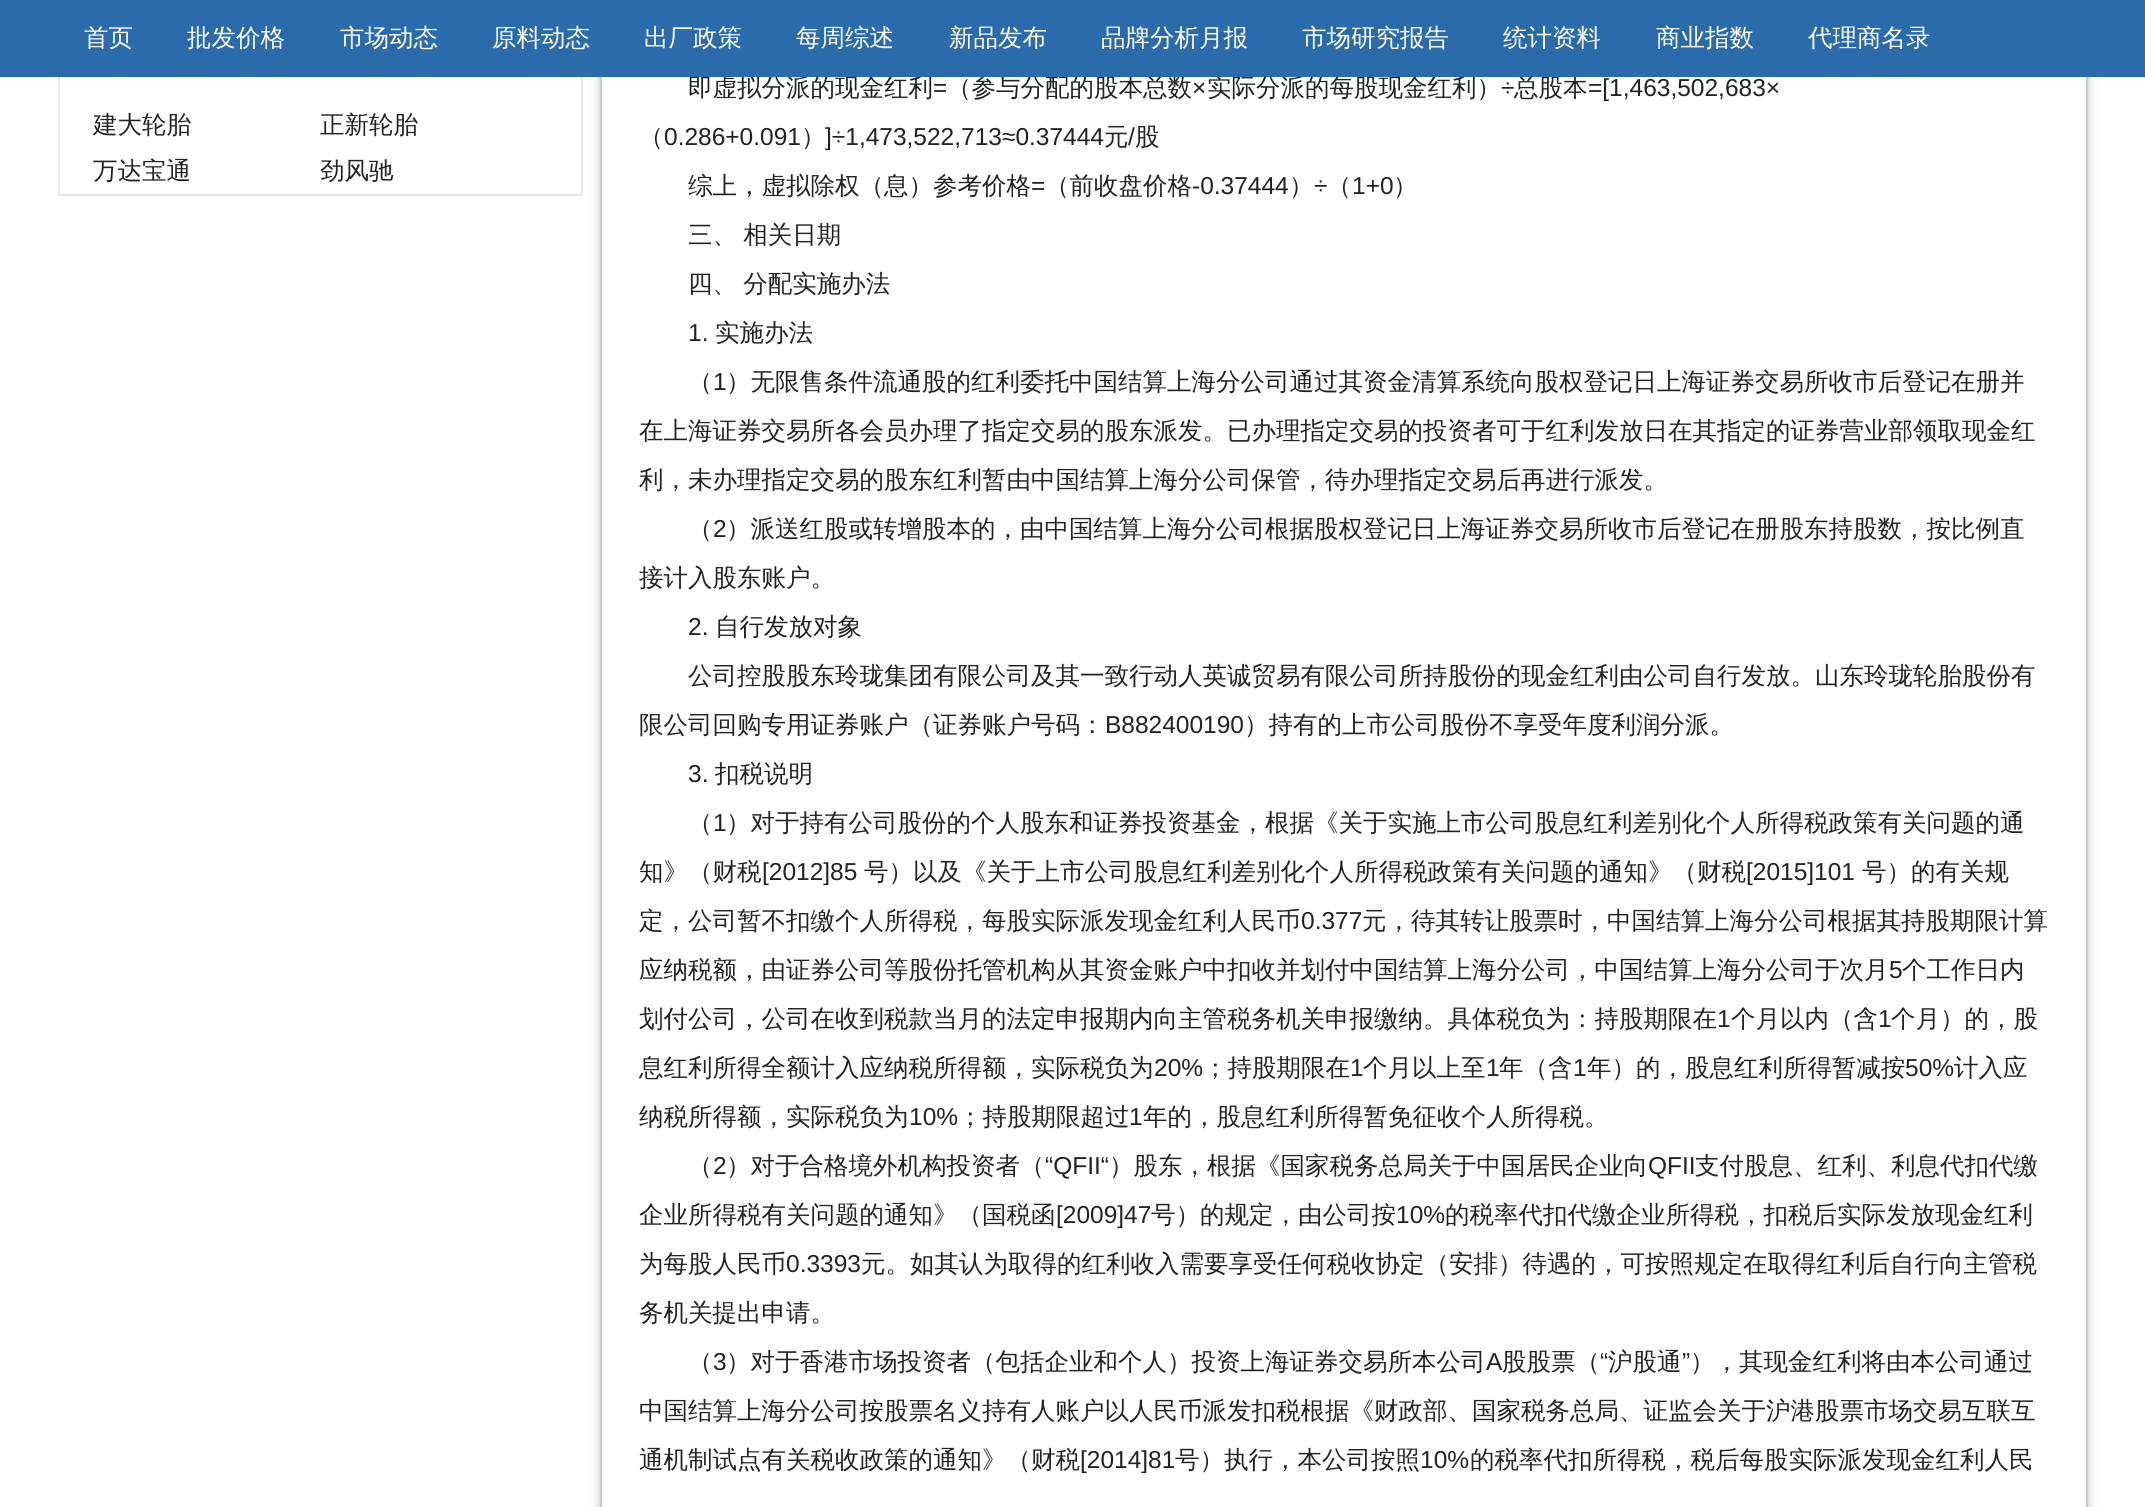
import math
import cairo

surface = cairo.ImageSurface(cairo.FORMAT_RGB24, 2145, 1507)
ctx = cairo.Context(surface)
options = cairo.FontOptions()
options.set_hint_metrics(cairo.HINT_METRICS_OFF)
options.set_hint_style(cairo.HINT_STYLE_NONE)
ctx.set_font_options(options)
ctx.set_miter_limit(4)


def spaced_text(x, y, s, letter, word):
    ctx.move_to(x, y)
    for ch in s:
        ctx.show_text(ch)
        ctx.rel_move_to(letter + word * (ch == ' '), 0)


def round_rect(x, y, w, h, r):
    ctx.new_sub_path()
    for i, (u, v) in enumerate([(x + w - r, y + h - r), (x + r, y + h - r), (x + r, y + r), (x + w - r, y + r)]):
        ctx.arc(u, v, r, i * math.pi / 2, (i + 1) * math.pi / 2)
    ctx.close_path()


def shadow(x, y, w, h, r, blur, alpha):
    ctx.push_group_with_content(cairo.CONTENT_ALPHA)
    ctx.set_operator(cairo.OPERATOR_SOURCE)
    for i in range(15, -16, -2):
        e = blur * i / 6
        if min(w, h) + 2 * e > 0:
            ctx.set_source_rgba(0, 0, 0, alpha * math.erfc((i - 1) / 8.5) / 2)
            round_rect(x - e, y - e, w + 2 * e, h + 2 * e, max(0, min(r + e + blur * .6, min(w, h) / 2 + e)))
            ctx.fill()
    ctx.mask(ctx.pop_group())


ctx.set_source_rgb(1, 1, 1)
ctx.paint()
ctx.rectangle(59, -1, 523, 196)
ctx.set_source_rgb(0.91, 0.91, 0.91)
ctx.stroke()
ctx.save()
ctx.set_fill_rule(cairo.FILL_RULE_EVEN_ODD)
ctx.new_path()
ctx.move_to(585, 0)
ctx.line_to(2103, 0)
ctx.line_to(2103, 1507)
ctx.line_to(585, 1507)
ctx.close_path()
ctx.move_to(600, -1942)
ctx.line_to(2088, -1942)
ctx.line_to(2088, 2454)
ctx.line_to(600, 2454)
ctx.close_path()
ctx.clip()
ctx.set_source_rgb(0.776, 0.776, 0.776)
shadow(600, -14, 1488, 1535, 0, 4.5, 1)
ctx.restore()
ctx.rectangle(601, -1, 1486, 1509)
ctx.set_source_rgb(0.8, 0.8, 0.8)
ctx.stroke()
ctx.select_font_face("WenQuanYi Zen Hei Medium")
ctx.set_font_size(24.5)
ctx.set_source_rgb(0.133, 0.133, 0.133)
ctx.move_to(688, 96)
ctx.show_text("即虚拟分派的现金红利")
ctx.move_to(947, 96)
ctx.show_text("（参与分配的股本总数")
ctx.move_to(1207, 96)
ctx.show_text("实际分派的每股现金红利）")
ctx.move_to(1514, 96)
ctx.show_text("总股本")
ctx.set_source_rgb(0.169, 0.42, 0.671)
ctx.rectangle(0, 0, 2145, 77)
ctx.fill()
ctx.set_source_rgb(1, 1, 1)
ctx.move_to(84, 46)
ctx.show_text("首页")
ctx.move_to(187, 46)
ctx.show_text("批发价格")
ctx.move_to(340, 46)
ctx.show_text("市场动态")
ctx.move_to(492, 46)
ctx.show_text("原料动态")
ctx.move_to(644, 46)
ctx.show_text("出厂政策")
ctx.move_to(796, 46)
ctx.show_text("每周综述")
ctx.move_to(949, 46)
ctx.show_text("新品发布")
ctx.move_to(1101, 46)
ctx.show_text("品牌分析月报")
ctx.move_to(1302, 46)
ctx.show_text("市场研究报告")
ctx.move_to(1503, 46)
ctx.show_text("统计资料")
ctx.move_to(1656, 46)
ctx.show_text("商业指数")
ctx.move_to(1808, 46)
ctx.show_text("代理商名录")
ctx.set_source_rgb(0.133, 0.133, 0.133)
ctx.move_to(93, 133)
ctx.show_text("建大轮胎")
ctx.move_to(320, 133)
ctx.show_text("正新轮胎")
ctx.move_to(93, 179)
ctx.show_text("万达宝通")
ctx.move_to(320, 179)
ctx.show_text("劲风驰")
ctx.select_font_face("Liberation Sans")
ctx.move_to(933, 96)
ctx.show_text("=")
ctx.move_to(1192, 96)
ctx.show_text("×")
ctx.move_to(1501, 96)
ctx.show_text("÷")
ctx.move_to(1588, 96)
ctx.show_text("=[1,463,502,683×")
ctx.select_font_face("WenQuanYi Zen Hei Medium")
ctx.move_to(639, 145)
ctx.show_text("（")
ctx.select_font_face("Liberation Sans")
ctx.move_to(664, 145)
ctx.show_text("0.286+0.091")
ctx.select_font_face("WenQuanYi Zen Hei Medium")
ctx.move_to(801, 145)
ctx.show_text("）")
ctx.select_font_face("Liberation Sans")
ctx.move_to(825, 145)
ctx.show_text("]÷1,473,522,713≈0.37444")
ctx.select_font_face("WenQuanYi Zen Hei Medium")
ctx.move_to(1104, 145)
ctx.show_text("元")
ctx.select_font_face("Liberation Sans")
ctx.move_to(1128, 145)
ctx.show_text("/")
ctx.select_font_face("WenQuanYi Zen Hei Medium")
ctx.move_to(1135, 145)
ctx.show_text("股")
ctx.move_to(688, 194)
ctx.show_text("综上，虚拟除权（息）参考价格")
ctx.select_font_face("Liberation Sans")
ctx.move_to(1031, 194)
ctx.show_text("=")
ctx.select_font_face("WenQuanYi Zen Hei Medium")
ctx.move_to(1045, 194)
ctx.show_text("（前收盘价格")
ctx.select_font_face("Liberation Sans")
ctx.move_to(1192, 194)
ctx.show_text("-0.37444")
ctx.select_font_face("WenQuanYi Zen Hei Medium")
ctx.move_to(1289, 194)
ctx.show_text("）")
ctx.select_font_face("Liberation Sans")
ctx.move_to(1314, 194)
ctx.show_text("÷")
ctx.select_font_face("WenQuanYi Zen Hei Medium")
ctx.move_to(1327, 194)
ctx.show_text("（")
ctx.select_font_face("Liberation Sans")
ctx.move_to(1352, 194)
ctx.show_text("1+0")
ctx.select_font_face("WenQuanYi Zen Hei Medium")
ctx.move_to(1393, 194)
ctx.show_text("）")
spaced_text(688, 243, "三、 相关日期", 0, -1)
spaced_text(688, 292, "四、 分配实施办法", 0, -1)
ctx.select_font_face("Liberation Sans")
ctx.move_to(688, 341)
ctx.show_text("1.")
ctx.select_font_face("WenQuanYi Zen Hei Medium")
ctx.move_to(715, 341)
ctx.show_text("实施办法")
ctx.move_to(688, 390)
ctx.show_text("（")
ctx.select_font_face("Liberation Sans")
ctx.move_to(713, 390)
ctx.show_text("1")
ctx.select_font_face("WenQuanYi Zen Hei Medium")
ctx.move_to(726, 390)
ctx.show_text("）无限售条件流通股的红利委托中国结算上海分公司通过其资金清算系统向股权登记日上海证券交易所收市后登记在册并")
ctx.move_to(639, 439)
ctx.show_text("在上海证券交易所各会员办理了指定交易的股东派发。已办理指定交易的投资者可于红利发放日在其指定的证券营业部领取现金红")
ctx.move_to(639, 488)
ctx.show_text("利，未办理指定交易的股东红利暂由中国结算上海分公司保管，待办理指定交易后再进行派发。")
ctx.move_to(688, 537)
ctx.show_text("（")
ctx.select_font_face("Liberation Sans")
ctx.move_to(713, 537)
ctx.show_text("2")
ctx.select_font_face("WenQuanYi Zen Hei Medium")
ctx.move_to(726, 537)
ctx.show_text("）派送红股或转增股本的，由中国结算上海分公司根据股权登记日上海证券交易所收市后登记在册股东持股数，按比例直")
ctx.move_to(639, 586)
ctx.show_text("接计入股东账户。")
ctx.select_font_face("Liberation Sans")
ctx.move_to(688, 635)
ctx.show_text("2.")
ctx.select_font_face("WenQuanYi Zen Hei Medium")
ctx.move_to(715, 635)
ctx.show_text("自行发放对象")
ctx.move_to(688, 684)
ctx.show_text("公司控股股东玲珑集团有限公司及其一致行动人英诚贸易有限公司所持股份的现金红利由公司自行发放。山东玲珑轮胎股份有")
ctx.move_to(639, 733)
ctx.show_text("限公司回购专用证券账户（证券账户号码：")
ctx.select_font_face("Liberation Sans")
ctx.move_to(1105, 733)
ctx.show_text("B882400190")
ctx.select_font_face("WenQuanYi Zen Hei Medium")
ctx.move_to(1244, 733)
ctx.show_text("）持有的上市公司股份不享受年度利润分派。")
ctx.select_font_face("Liberation Sans")
ctx.move_to(688, 782)
ctx.show_text("3.")
ctx.select_font_face("WenQuanYi Zen Hei Medium")
ctx.move_to(715, 782)
ctx.show_text("扣税说明")
ctx.move_to(688, 831)
ctx.show_text("（")
ctx.select_font_face("Liberation Sans")
ctx.move_to(713, 831)
ctx.show_text("1")
ctx.select_font_face("WenQuanYi Zen Hei Medium")
ctx.move_to(726, 831)
ctx.show_text("）对于持有公司股份的个人股东和证券投资基金，根据《关于实施上市公司股息红利差别化个人所得税政策有关问题的通")
ctx.move_to(639, 880)
ctx.show_text("知》（财税")
ctx.select_font_face("Liberation Sans")
ctx.move_to(762, 880)
ctx.show_text("[2012]85")
ctx.select_font_face("WenQuanYi Zen Hei Medium")
ctx.move_to(864, 880)
ctx.show_text("号）以及《关于上市公司股息红利差别化个人所得税政策有关问题的通知》（财税")
ctx.select_font_face("Liberation Sans")
ctx.move_to(1746, 880)
ctx.show_text("[2015]101")
ctx.select_font_face("WenQuanYi Zen Hei Medium")
ctx.move_to(1862, 880)
ctx.show_text("号）的有关规")
ctx.move_to(639, 929)
ctx.show_text("定，公司暂不扣缴个人所得税，每股实际派发现金红利人民币")
ctx.select_font_face("Liberation Sans")
ctx.move_to(1301, 929)
ctx.show_text("0.377")
ctx.select_font_face("WenQuanYi Zen Hei Medium")
ctx.move_to(1362, 929)
ctx.show_text("元，待其转让股票时，中国结算上海分公司根据其持股期限计算")
ctx.move_to(639, 978)
ctx.show_text("应纳税额，由证券公司等股份托管机构从其资金账户中扣收并划付中国结算上海分公司，中国结算上海分公司于次月")
ctx.select_font_face("Liberation Sans")
ctx.move_to(1889, 978)
ctx.show_text("5")
ctx.select_font_face("WenQuanYi Zen Hei Medium")
ctx.move_to(1902, 978)
ctx.show_text("个工作日内")
ctx.move_to(639, 1027)
ctx.show_text("划付公司，公司在收到税款当月的法定申报期内向主管税务机关申报缴纳。具体税负为：持股期限在")
ctx.select_font_face("Liberation Sans")
ctx.move_to(1717, 1027)
ctx.show_text("1")
ctx.select_font_face("WenQuanYi Zen Hei Medium")
ctx.move_to(1731, 1027)
ctx.show_text("个月以内（含")
ctx.select_font_face("Liberation Sans")
ctx.move_to(1878, 1027)
ctx.show_text("1")
ctx.select_font_face("WenQuanYi Zen Hei Medium")
ctx.move_to(1891, 1027)
ctx.show_text("个月）的，股")
ctx.move_to(639, 1076)
ctx.show_text("息红利所得全额计入应纳税所得额，实际税负为")
ctx.select_font_face("Liberation Sans")
ctx.move_to(1154, 1076)
ctx.show_text("20%")
ctx.select_font_face("WenQuanYi Zen Hei Medium")
ctx.move_to(1203, 1076)
ctx.show_text("；持股期限在")
ctx.select_font_face("Liberation Sans")
ctx.move_to(1350, 1076)
ctx.show_text("1")
ctx.select_font_face("WenQuanYi Zen Hei Medium")
ctx.move_to(1363, 1076)
ctx.show_text("个月以上至")
ctx.select_font_face("Liberation Sans")
ctx.move_to(1486, 1076)
ctx.show_text("1")
ctx.select_font_face("WenQuanYi Zen Hei Medium")
ctx.move_to(1499, 1076)
ctx.show_text("年（含")
ctx.select_font_face("Liberation Sans")
ctx.move_to(1573, 1076)
ctx.show_text("1")
ctx.select_font_face("WenQuanYi Zen Hei Medium")
ctx.move_to(1587, 1076)
ctx.show_text("年）的，股息红利所得暂减按")
ctx.select_font_face("Liberation Sans")
ctx.move_to(1905, 1076)
ctx.show_text("50%")
ctx.select_font_face("WenQuanYi Zen Hei Medium")
ctx.move_to(1954, 1076)
ctx.show_text("计入应")
ctx.move_to(639, 1125)
ctx.show_text("纳税所得额，实际税负为")
ctx.select_font_face("Liberation Sans")
ctx.move_to(909, 1125)
ctx.show_text("10%")
ctx.select_font_face("WenQuanYi Zen Hei Medium")
ctx.move_to(958, 1125)
ctx.show_text("；持股期限超过")
ctx.select_font_face("Liberation Sans")
ctx.move_to(1129, 1125)
ctx.show_text("1")
ctx.select_font_face("WenQuanYi Zen Hei Medium")
ctx.move_to(1143, 1125)
ctx.show_text("年的，股息红利所得暂免征收个人所得税。")
ctx.move_to(688, 1174)
ctx.show_text("（")
ctx.select_font_face("Liberation Sans")
ctx.move_to(713, 1174)
ctx.show_text("2")
ctx.select_font_face("WenQuanYi Zen Hei Medium")
ctx.move_to(726, 1174)
ctx.show_text("）对于合格境外机构投资者（")
ctx.select_font_face("Liberation Sans")
ctx.move_to(1045, 1174)
ctx.show_text("“QFII“")
ctx.select_font_face("WenQuanYi Zen Hei Medium")
ctx.move_to(1109, 1174)
ctx.show_text("）股东，根据《国家税务总局关于中国居民企业向")
ctx.select_font_face("Liberation Sans")
ctx.move_to(1648, 1174)
ctx.show_text("QFII")
ctx.select_font_face("WenQuanYi Zen Hei Medium")
ctx.move_to(1695, 1174)
ctx.show_text("支付股息、红利、利息代扣代缴")
ctx.move_to(639, 1223)
ctx.show_text("企业所得税有关问题的通知》（国税函")
ctx.select_font_face("Liberation Sans")
ctx.move_to(1056, 1223)
ctx.show_text("[2009]47")
ctx.select_font_face("WenQuanYi Zen Hei Medium")
ctx.move_to(1151, 1223)
ctx.show_text("号）的规定，由公司按")
ctx.select_font_face("Liberation Sans")
ctx.move_to(1396, 1223)
ctx.show_text("10%")
ctx.select_font_face("WenQuanYi Zen Hei Medium")
ctx.move_to(1445, 1223)
ctx.show_text("的税率代扣代缴企业所得税，扣税后实际发放现金红利")
ctx.move_to(639, 1272)
ctx.show_text("为每股人民币")
ctx.select_font_face("Liberation Sans")
ctx.move_to(786, 1272)
ctx.show_text("0.3393")
ctx.select_font_face("WenQuanYi Zen Hei Medium")
ctx.move_to(861, 1272)
ctx.show_text("元。如其认为取得的红利收入需要享受任何税收协定（安排）待遇的，可按照规定在取得红利后自行向主管税")
ctx.move_to(639, 1321)
ctx.show_text("务机关提出申请。")
ctx.move_to(688, 1370)
ctx.show_text("（")
ctx.select_font_face("Liberation Sans")
ctx.move_to(713, 1370)
ctx.show_text("3")
ctx.select_font_face("WenQuanYi Zen Hei Medium")
ctx.move_to(726, 1370)
ctx.show_text("）对于香港市场投资者（包括企业和个人）投资上海证券交易所本公司")
ctx.select_font_face("Liberation Sans")
ctx.move_to(1486, 1370)
ctx.show_text("A")
ctx.select_font_face("WenQuanYi Zen Hei Medium")
ctx.move_to(1502, 1370)
ctx.show_text("股股票（")
ctx.select_font_face("Liberation Sans")
ctx.move_to(1600, 1370)
ctx.show_text("“")
ctx.select_font_face("WenQuanYi Zen Hei Medium")
ctx.move_to(1608, 1370)
ctx.show_text("沪股通")
ctx.select_font_face("Liberation Sans")
ctx.move_to(1682, 1370)
ctx.show_text("”")
ctx.select_font_face("WenQuanYi Zen Hei Medium")
ctx.move_to(1690, 1370)
ctx.show_text("），其现金红利将由本公司通过")
ctx.move_to(639, 1419)
ctx.show_text("中国结算上海分公司按股票名义持有人账户以人民币派发扣税根据《财政部、国家税务总局、证监会关于沪港股票市场交易互联互")
ctx.move_to(639, 1468)
ctx.show_text("通机制试点有关税收政策的通知》（财税")
ctx.select_font_face("Liberation Sans")
ctx.move_to(1080, 1468)
ctx.show_text("[2014]81")
ctx.select_font_face("WenQuanYi Zen Hei Medium")
ctx.move_to(1175, 1468)
ctx.show_text("号）执行，本公司按照")
ctx.select_font_face("Liberation Sans")
ctx.move_to(1420, 1468)
ctx.show_text("10%")
ctx.select_font_face("WenQuanYi Zen Hei Medium")
ctx.move_to(1470, 1468)
ctx.show_text("的税率代扣所得税，税后每股实际派发现金红利人民")
surface.write_to_png("page.png")
